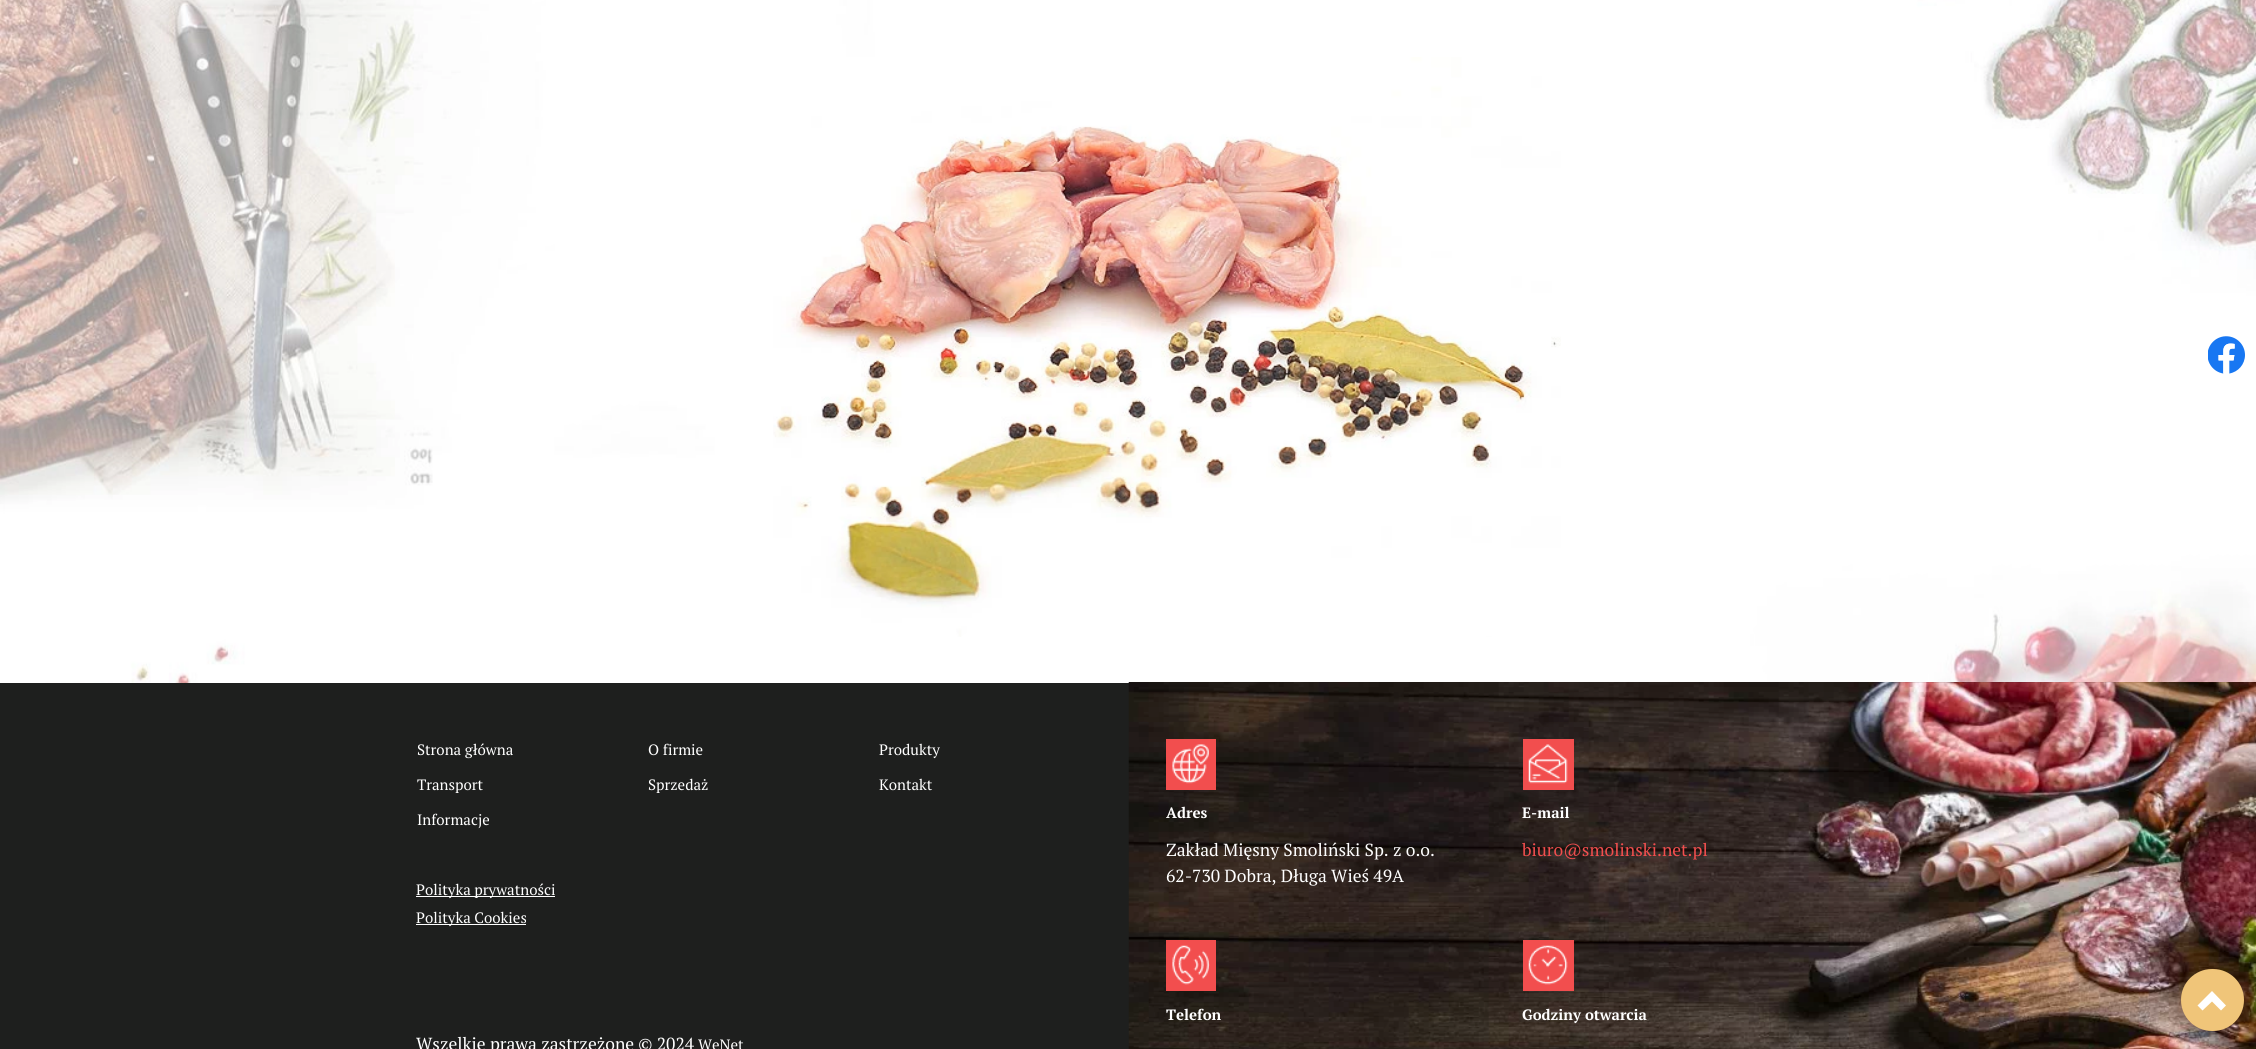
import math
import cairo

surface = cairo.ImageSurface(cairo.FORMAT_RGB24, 2256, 1049)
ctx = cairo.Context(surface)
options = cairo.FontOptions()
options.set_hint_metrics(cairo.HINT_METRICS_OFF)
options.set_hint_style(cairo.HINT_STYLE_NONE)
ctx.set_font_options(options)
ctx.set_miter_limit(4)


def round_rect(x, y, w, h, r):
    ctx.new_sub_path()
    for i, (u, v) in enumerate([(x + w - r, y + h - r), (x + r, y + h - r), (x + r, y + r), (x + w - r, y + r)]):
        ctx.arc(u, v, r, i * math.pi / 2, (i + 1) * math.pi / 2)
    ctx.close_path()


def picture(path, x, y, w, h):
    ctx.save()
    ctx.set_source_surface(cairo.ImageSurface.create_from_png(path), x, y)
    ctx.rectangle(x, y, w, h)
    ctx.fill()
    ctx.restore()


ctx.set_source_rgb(1, 1, 1)
ctx.paint()
picture("img1.png", 0, 0, 2256, 683)
picture("img2.png", 773, 57, 788, 580)
picture("img3.png", 2208, 336, 37, 38)
ctx.set_source_rgb(0.118, 0.122, 0.118)
ctx.rectangle(0, 683, 1129, 366)
ctx.fill()
picture("img4.png", 1128, 682, 1128, 367)
ctx.select_font_face("PT Serif")
ctx.set_font_size(15)
ctx.set_source_rgb(1, 1, 1)
ctx.move_to(417, 755)
ctx.show_text("Strona główna")
ctx.move_to(648, 755)
ctx.show_text("O firmie")
ctx.move_to(879, 755)
ctx.show_text("Produkty")
ctx.move_to(417, 790)
ctx.show_text("Transport")
ctx.move_to(648, 790)
ctx.show_text("Sprzedaż")
ctx.move_to(879, 790)
ctx.show_text("Kontakt")
ctx.move_to(417, 825)
ctx.show_text("Informacje")
ctx.rectangle(416, 896, 139, 1)
ctx.fill()
ctx.move_to(416, 895)
ctx.show_text("Polityka prywatności")
ctx.rectangle(416, 924, 110, 1)
ctx.fill()
ctx.move_to(416, 923)
ctx.show_text("Polityka Cookies")
ctx.set_font_size(17.5)
ctx.move_to(416, 1050)
ctx.show_text("Wszelkie prawa zastrzeżone © 2024")
ctx.set_font_size(15)
ctx.move_to(698, 1050)
ctx.show_text("WeNet")
ctx.set_source_rgb(0.949, 0.306, 0.306)
ctx.rectangle(1166, 739, 50, 51)
ctx.fill()
picture("img5.png", 1172, 744, 37, 40)
ctx.select_font_face("PT Serif", cairo.FONT_SLANT_NORMAL, cairo.FONT_WEIGHT_BOLD)
ctx.set_source_rgb(1, 1, 1)
ctx.move_to(1166, 818)
ctx.show_text("Adres")
ctx.select_font_face("PT Serif")
ctx.set_font_size(17.5)
ctx.move_to(1166, 856)
ctx.show_text("Zakład Mięsny Smoliński Sp. z o.o.")
ctx.move_to(1166, 882)
ctx.show_text("62-730 Dobra, Długa Wieś 49A")
ctx.set_source_rgb(0.949, 0.306, 0.306)
ctx.rectangle(1523, 739, 51, 51)
ctx.fill()
picture("img6.png", 1528, 744, 40, 40)
ctx.select_font_face("PT Serif", cairo.FONT_SLANT_NORMAL, cairo.FONT_WEIGHT_BOLD)
ctx.set_font_size(15)
ctx.set_source_rgb(1, 1, 1)
ctx.move_to(1522, 818)
ctx.show_text("E-mail")
ctx.select_font_face("PT Serif")
ctx.set_font_size(17.5)
ctx.set_source_rgb(0.949, 0.306, 0.306)
ctx.move_to(1522, 856)
ctx.show_text("biuro@smolinski.net.pl")
ctx.rectangle(1166, 940, 50, 51)
ctx.fill()
picture("img7.png", 1172, 945, 38, 40)
ctx.select_font_face("PT Serif", cairo.FONT_SLANT_NORMAL, cairo.FONT_WEIGHT_BOLD)
ctx.set_font_size(15)
ctx.set_source_rgb(1, 1, 1)
ctx.move_to(1166, 1020)
ctx.show_text("Telefon")
ctx.set_source_rgb(0.949, 0.306, 0.306)
ctx.rectangle(1523, 940, 51, 51)
ctx.fill()
picture("img8.png", 1528, 945, 40, 40)
ctx.set_source_rgb(1, 1, 1)
ctx.move_to(1522, 1020)
ctx.show_text("Godziny otwarcia")
ctx.set_source_rgb(0.941, 0.773, 0.475)
round_rect(2181, 969, 63, 62, 31)
ctx.fill()
ctx.set_source_rgb(1, 1, 1)
ctx.new_path()
ctx.move_to(2226, 1005.5)
ctx.line_to(2221, 1010.5)
ctx.line_to(2212, 1001.5)
ctx.line_to(2202.5, 1010.5)
ctx.line_to(2197.5, 1005.5)
ctx.line_to(2212, 991)
ctx.close_path()
ctx.fill()
surface.write_to_png("page.png")
